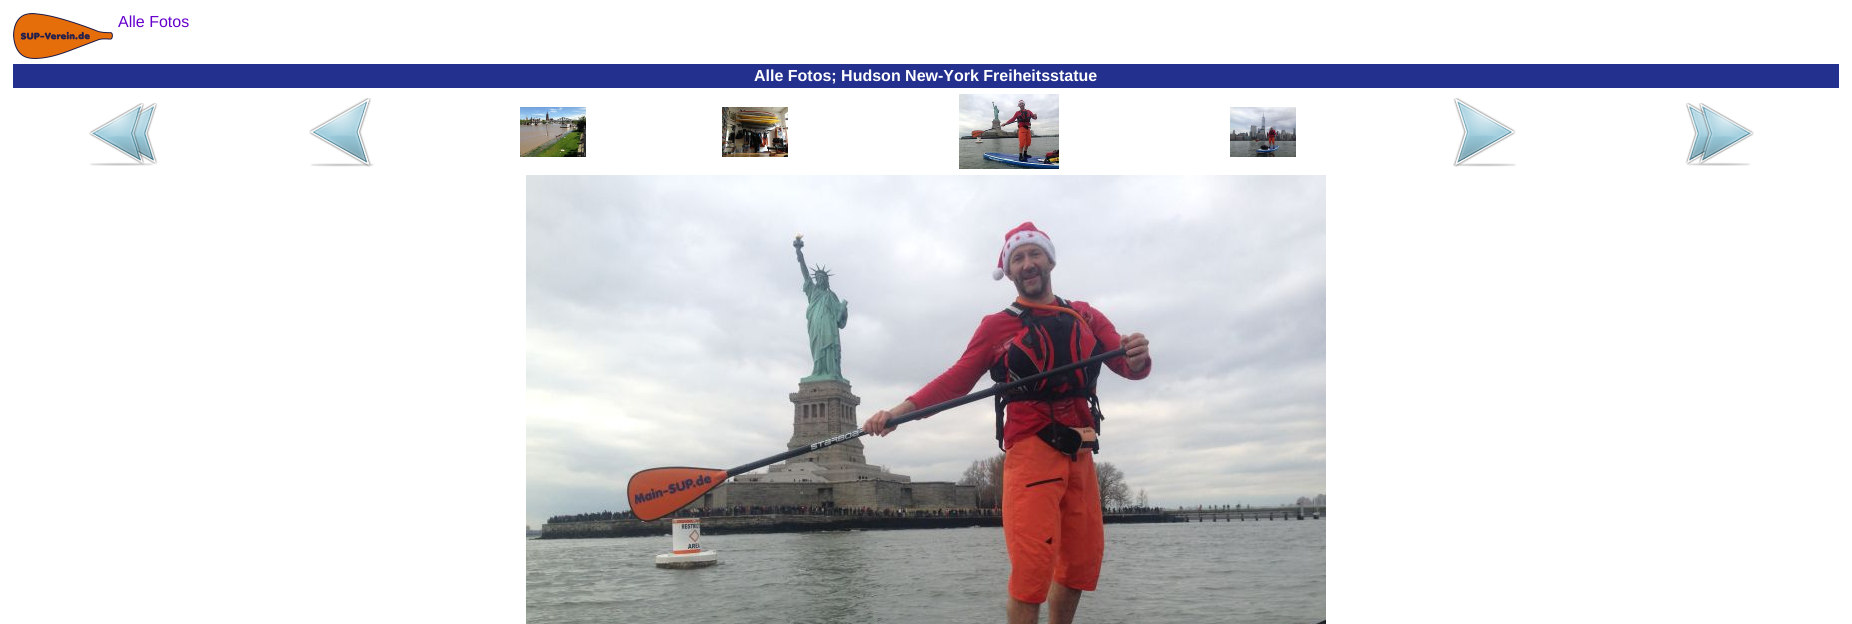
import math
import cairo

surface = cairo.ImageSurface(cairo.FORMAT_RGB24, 1852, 624)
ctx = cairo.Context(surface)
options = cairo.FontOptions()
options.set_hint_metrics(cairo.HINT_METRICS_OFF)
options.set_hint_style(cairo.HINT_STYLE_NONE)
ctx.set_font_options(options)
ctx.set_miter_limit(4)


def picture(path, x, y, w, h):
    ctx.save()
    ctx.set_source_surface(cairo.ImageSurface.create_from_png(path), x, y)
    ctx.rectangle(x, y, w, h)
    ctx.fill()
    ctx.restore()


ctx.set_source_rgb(1, 1, 1)
ctx.paint()
picture("img1.png", 13, 13, 100, 46)
ctx.select_font_face("Liberation Sans")
ctx.set_font_size(16)
ctx.set_source_rgb(0.4, 0, 0.8)
ctx.move_to(118, 27)
ctx.show_text("Alle Fotos")
ctx.set_source_rgb(0.137, 0.188, 0.557)
ctx.rectangle(13, 64, 1826, 24)
ctx.fill()
ctx.select_font_face("Liberation Sans", cairo.FONT_SLANT_NORMAL, cairo.FONT_WEIGHT_BOLD)
ctx.set_source_rgb(1, 1, 1)
ctx.move_to(754, 81)
ctx.show_text("Alle Fotos; Hudson New-York Freiheitsstatue")
picture("img2.png", 89, 103, 69, 63)
picture("img3.png", 309, 98, 65, 69)
picture("img4.png", 520, 107, 66, 50)
picture("img5.png", 722, 107, 66, 50)
picture("img6.png", 959, 94, 100, 75)
picture("img7.png", 1230, 107, 66, 50)
picture("img8.png", 1453, 98, 63, 69)
picture("img9.png", 1685, 103, 69, 63)
picture("img10.png", 526, 175, 800, 449)
surface.write_to_png("page.png")
